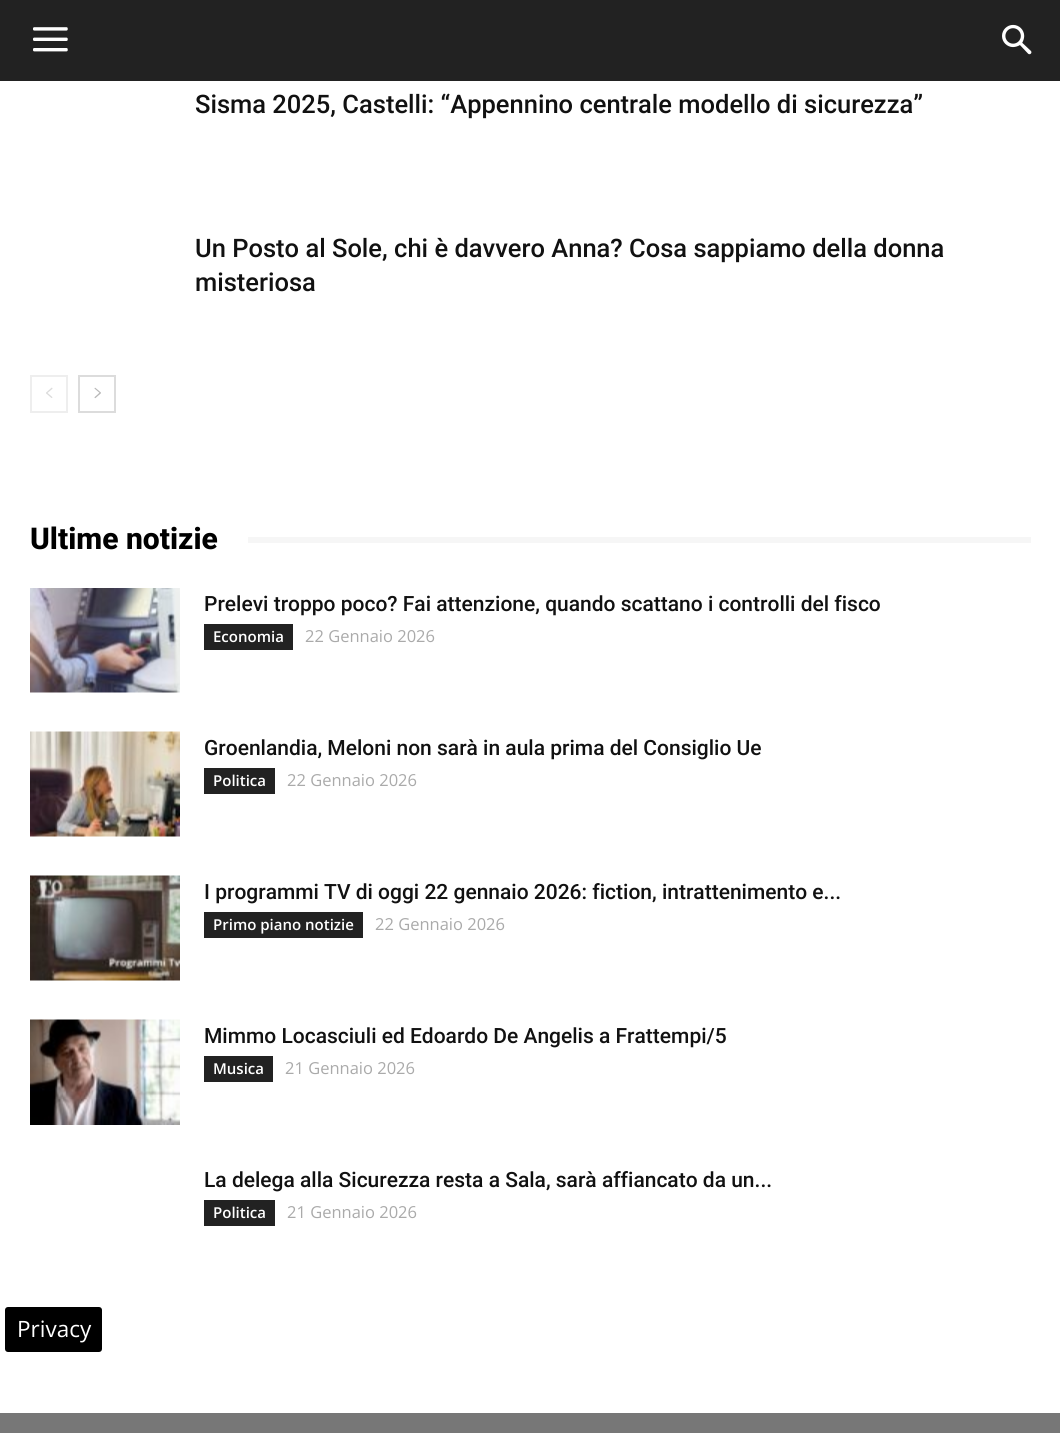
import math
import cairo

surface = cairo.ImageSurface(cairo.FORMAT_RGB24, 1060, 1433)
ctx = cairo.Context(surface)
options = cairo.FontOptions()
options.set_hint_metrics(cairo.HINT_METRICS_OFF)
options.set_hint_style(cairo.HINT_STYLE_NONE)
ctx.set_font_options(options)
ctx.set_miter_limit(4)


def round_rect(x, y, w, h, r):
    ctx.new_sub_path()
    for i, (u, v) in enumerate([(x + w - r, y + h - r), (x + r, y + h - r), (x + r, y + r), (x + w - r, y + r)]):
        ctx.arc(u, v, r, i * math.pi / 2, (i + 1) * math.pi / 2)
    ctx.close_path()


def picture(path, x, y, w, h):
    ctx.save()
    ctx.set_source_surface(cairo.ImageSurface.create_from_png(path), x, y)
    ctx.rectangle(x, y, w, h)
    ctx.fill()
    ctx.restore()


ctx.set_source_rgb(1, 1, 1)
ctx.paint()
ctx.set_source_rgb(0.133, 0.133, 0.133)
ctx.rectangle(0, 0, 1060, 81)
ctx.fill()
picture("img1.png", 33, 27, 35, 25)
picture("img2.png", 1002, 24, 30, 31)
ctx.select_font_face("Roboto Medium")
ctx.set_font_size(25.5)
ctx.set_source_rgb(0.067, 0.067, 0.067)
ctx.move_to(195, 113)
ctx.show_text("Sisma 2025, Castelli: “Appennino centrale modello di sicurezza”")
ctx.move_to(195, 257)
ctx.show_text("Un Posto al Sole, chi è davvero Anna? Cosa sappiamo della donna")
ctx.move_to(195, 291)
ctx.show_text("misteriosa")
ctx.rectangle(31, 376, 36, 36)
ctx.set_source_rgb(0.933, 0.933, 0.933)
ctx.stroke()
picture("img3.png", 46, 387, 7, 11)
ctx.rectangle(79, 376, 36, 36)
ctx.set_source_rgb(0.863, 0.863, 0.863)
ctx.stroke()
picture("img4.png", 94, 387, 7, 12)
ctx.select_font_face("Roboto ExtraBold")
ctx.set_font_size(30)
ctx.set_source_rgb(0, 0, 0)
ctx.move_to(30, 549)
ctx.show_text("Ultime notizie")
ctx.set_source_rgb(0.961, 0.961, 0.961)
ctx.rectangle(248, 537, 783, 6)
ctx.fill()
picture("img5.png", 30, 588, 150, 105)
ctx.select_font_face("Roboto Medium")
ctx.set_font_size(21)
ctx.set_source_rgb(0.067, 0.067, 0.067)
ctx.move_to(204, 611)
ctx.show_text("Prelevi troppo poco? Fai attenzione, quando scattano i controlli del fisco")
ctx.set_source_rgb(0.133, 0.133, 0.133)
ctx.rectangle(204, 624, 89, 26)
ctx.fill()
ctx.select_font_face("Open Sans SemiBold")
ctx.set_font_size(15)
ctx.set_source_rgb(1, 1, 1)
ctx.move_to(213, 642)
ctx.show_text("Economia")
ctx.select_font_face("Open Sans")
ctx.set_font_size(16.5)
ctx.set_source_rgb(0.667, 0.667, 0.667)
ctx.move_to(305, 642)
ctx.show_text("22 Gennaio 2026")
picture("img6.png", 30, 731, 150, 106)
ctx.select_font_face("Roboto Medium")
ctx.set_font_size(21)
ctx.set_source_rgb(0.067, 0.067, 0.067)
ctx.move_to(204, 755)
ctx.show_text("Groenlandia, Meloni non sarà in aula prima del Consiglio Ue")
ctx.set_source_rgb(0.133, 0.133, 0.133)
ctx.rectangle(204, 768, 71, 26)
ctx.fill()
ctx.select_font_face("Open Sans SemiBold")
ctx.set_font_size(15)
ctx.set_source_rgb(1, 1, 1)
ctx.move_to(213, 786)
ctx.show_text("Politica")
ctx.select_font_face("Open Sans")
ctx.set_font_size(16.5)
ctx.set_source_rgb(0.667, 0.667, 0.667)
ctx.move_to(287, 786)
ctx.show_text("22 Gennaio 2026")
picture("img7.png", 30, 875, 150, 106)
ctx.select_font_face("Roboto Medium")
ctx.set_font_size(21)
ctx.set_source_rgb(0.067, 0.067, 0.067)
ctx.move_to(204, 899)
ctx.show_text("I programmi TV di oggi 22 gennaio 2026: fiction, intrattenimento e...")
ctx.set_source_rgb(0.133, 0.133, 0.133)
ctx.rectangle(204, 912, 159, 26)
ctx.fill()
ctx.select_font_face("Open Sans SemiBold")
ctx.set_font_size(15)
ctx.set_source_rgb(1, 1, 1)
ctx.move_to(213, 930)
ctx.show_text("Primo piano notizie")
ctx.select_font_face("Open Sans")
ctx.set_font_size(16.5)
ctx.set_source_rgb(0.667, 0.667, 0.667)
ctx.move_to(375, 930)
ctx.show_text("22 Gennaio 2026")
picture("img8.png", 30, 1019, 150, 106)
ctx.select_font_face("Roboto Medium")
ctx.set_font_size(21)
ctx.set_source_rgb(0.067, 0.067, 0.067)
ctx.move_to(204, 1043)
ctx.show_text("Mimmo Locasciuli ed Edoardo De Angelis a Frattempi/5")
ctx.set_source_rgb(0.133, 0.133, 0.133)
ctx.rectangle(204, 1056, 69, 26)
ctx.fill()
ctx.select_font_face("Open Sans SemiBold")
ctx.set_font_size(15)
ctx.set_source_rgb(1, 1, 1)
ctx.move_to(213, 1074)
ctx.show_text("Musica")
ctx.select_font_face("Open Sans")
ctx.set_font_size(16.5)
ctx.set_source_rgb(0.667, 0.667, 0.667)
ctx.move_to(285, 1074)
ctx.show_text("21 Gennaio 2026")
ctx.select_font_face("Roboto Medium")
ctx.set_font_size(21)
ctx.set_source_rgb(0.067, 0.067, 0.067)
ctx.move_to(204, 1187)
ctx.show_text("La delega alla Sicurezza resta a Sala, sarà affiancato da un...")
ctx.set_source_rgb(0.133, 0.133, 0.133)
ctx.rectangle(204, 1200, 71, 26)
ctx.fill()
ctx.select_font_face("Open Sans SemiBold")
ctx.set_font_size(15)
ctx.set_source_rgb(1, 1, 1)
ctx.move_to(213, 1218)
ctx.show_text("Politica")
ctx.select_font_face("Open Sans")
ctx.set_font_size(16.5)
ctx.set_source_rgb(0.667, 0.667, 0.667)
ctx.move_to(287, 1218)
ctx.show_text("21 Gennaio 2026")
ctx.set_source_rgb(0.467, 0.467, 0.467)
ctx.rectangle(0, 1413, 1060, 20)
ctx.fill()
ctx.set_source_rgb(0, 0, 0)
round_rect(5, 1307, 97, 45, 3)
ctx.fill()
ctx.set_font_size(22.5)
ctx.set_source_rgb(1, 1, 1)
ctx.move_to(17, 1337)
ctx.show_text("Privacy")
surface.write_to_png("page.png")
